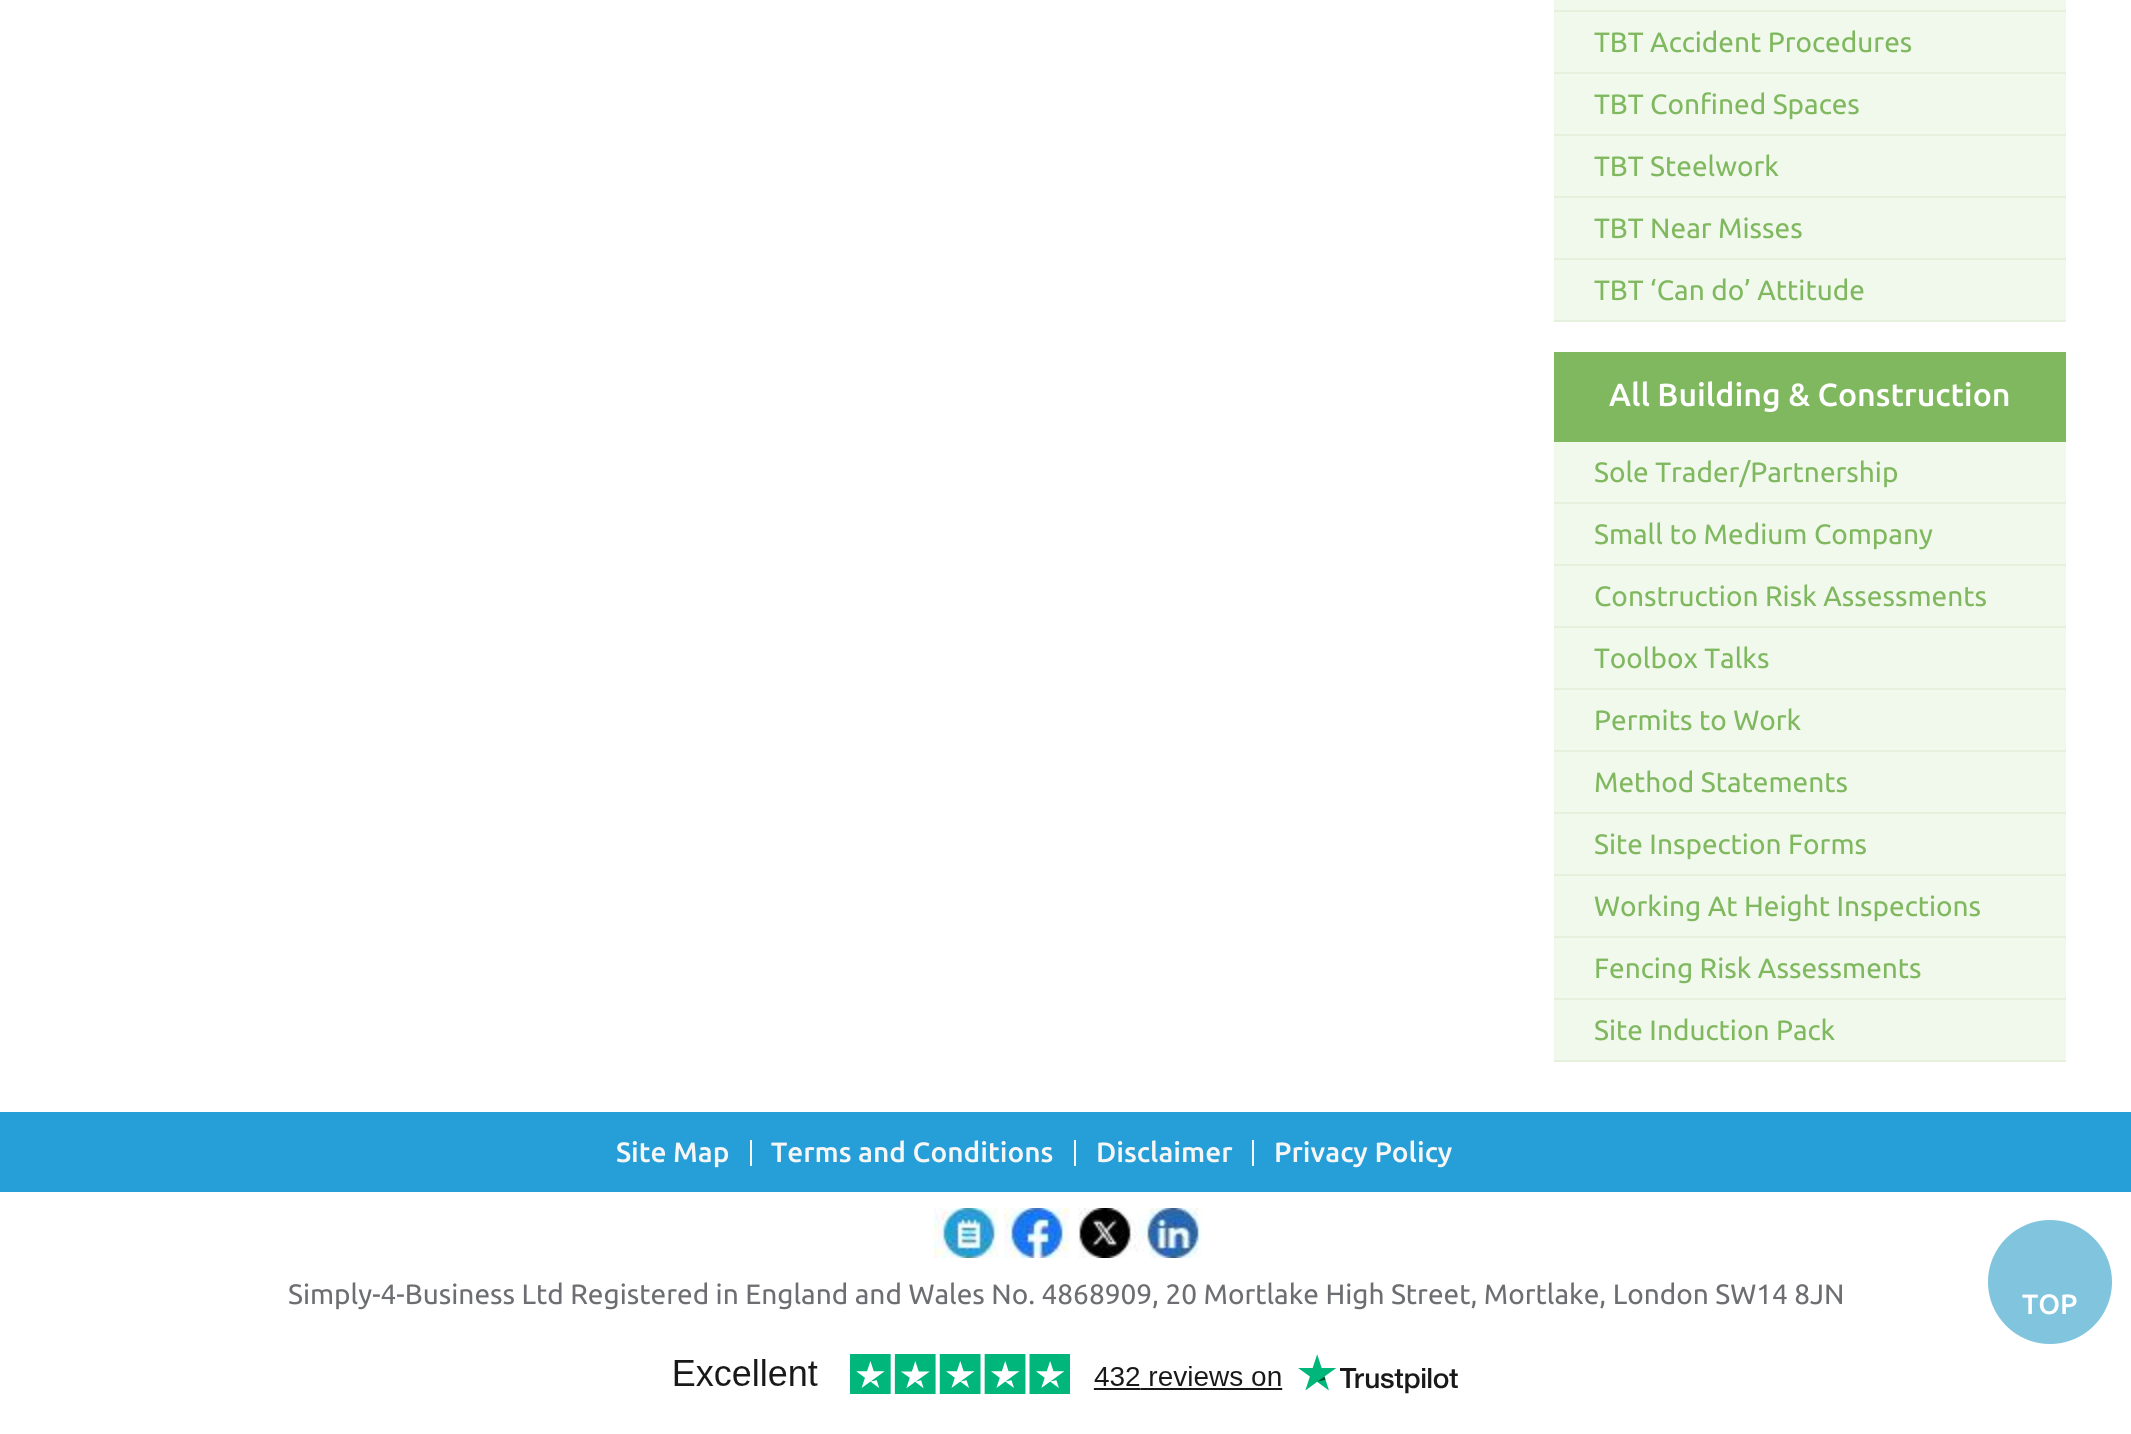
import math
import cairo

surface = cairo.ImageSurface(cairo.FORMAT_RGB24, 2131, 1434)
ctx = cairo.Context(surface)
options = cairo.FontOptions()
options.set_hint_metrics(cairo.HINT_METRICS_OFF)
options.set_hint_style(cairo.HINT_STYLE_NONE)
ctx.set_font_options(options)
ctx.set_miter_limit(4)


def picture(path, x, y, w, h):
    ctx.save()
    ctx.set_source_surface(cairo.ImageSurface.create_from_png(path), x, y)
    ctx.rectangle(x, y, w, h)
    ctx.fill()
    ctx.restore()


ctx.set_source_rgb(1, 1, 1)
ctx.paint()
ctx.set_source_rgb(0.945, 0.969, 0.922)
ctx.rectangle(1554, 0, 512, 320)
ctx.fill()
ctx.set_source_rgb(0.898, 0.945, 0.867)
ctx.rectangle(1554, 10, 512, 2)
ctx.fill()
ctx.rectangle(1554, 72, 512, 2)
ctx.fill()
ctx.select_font_face("Ubuntu")
ctx.set_font_size(28)
ctx.set_source_rgb(0.498, 0.722, 0.369)
ctx.move_to(1594, 52)
ctx.show_text("TBT Accident Procedures")
ctx.set_source_rgb(0.898, 0.945, 0.867)
ctx.rectangle(1554, 134, 512, 2)
ctx.fill()
ctx.set_source_rgb(0.498, 0.722, 0.369)
ctx.move_to(1594, 114)
ctx.show_text("TBT Confined Spaces")
ctx.set_source_rgb(0.898, 0.945, 0.867)
ctx.rectangle(1554, 196, 512, 2)
ctx.fill()
ctx.set_source_rgb(0.498, 0.722, 0.369)
ctx.move_to(1594, 176)
ctx.show_text("TBT Steelwork")
ctx.set_source_rgb(0.898, 0.945, 0.867)
ctx.rectangle(1554, 258, 512, 2)
ctx.fill()
ctx.set_source_rgb(0.498, 0.722, 0.369)
ctx.move_to(1594, 238)
ctx.show_text("TBT Near Misses")
ctx.set_source_rgb(0.898, 0.945, 0.867)
ctx.rectangle(1554, 320, 512, 2)
ctx.fill()
ctx.set_source_rgb(0.498, 0.722, 0.369)
ctx.move_to(1594, 300)
ctx.show_text("TBT ‘Can do’ Attitude")
ctx.rectangle(1554, 352, 512, 90)
ctx.fill()
ctx.select_font_face("Ubuntu Medium")
ctx.set_font_size(32)
ctx.set_source_rgb(1, 1, 1)
ctx.move_to(1609, 406)
ctx.show_text("All Building & Construction")
ctx.set_source_rgb(0.945, 0.969, 0.922)
ctx.rectangle(1554, 442, 512, 618)
ctx.fill()
ctx.set_source_rgb(0.898, 0.945, 0.867)
ctx.rectangle(1554, 502, 512, 2)
ctx.fill()
ctx.select_font_face("Ubuntu")
ctx.set_font_size(28)
ctx.set_source_rgb(0.498, 0.722, 0.369)
ctx.move_to(1594, 482)
ctx.show_text("Sole Trader/Partnership")
ctx.set_source_rgb(0.898, 0.945, 0.867)
ctx.rectangle(1554, 564, 512, 2)
ctx.fill()
ctx.set_source_rgb(0.498, 0.722, 0.369)
ctx.move_to(1594, 544)
ctx.show_text("Small to Medium Company")
ctx.set_source_rgb(0.898, 0.945, 0.867)
ctx.rectangle(1554, 626, 512, 2)
ctx.fill()
ctx.set_source_rgb(0.498, 0.722, 0.369)
ctx.move_to(1594, 606)
ctx.show_text("Construction Risk Assessments")
ctx.set_source_rgb(0.898, 0.945, 0.867)
ctx.rectangle(1554, 688, 512, 2)
ctx.fill()
ctx.set_source_rgb(0.498, 0.722, 0.369)
ctx.move_to(1594, 668)
ctx.show_text("Toolbox Talks")
ctx.set_source_rgb(0.898, 0.945, 0.867)
ctx.rectangle(1554, 750, 512, 2)
ctx.fill()
ctx.set_source_rgb(0.498, 0.722, 0.369)
ctx.move_to(1594, 730)
ctx.show_text("Permits to Work")
ctx.set_source_rgb(0.898, 0.945, 0.867)
ctx.rectangle(1554, 812, 512, 2)
ctx.fill()
ctx.set_source_rgb(0.498, 0.722, 0.369)
ctx.move_to(1594, 792)
ctx.show_text("Method Statements")
ctx.set_source_rgb(0.898, 0.945, 0.867)
ctx.rectangle(1554, 874, 512, 2)
ctx.fill()
ctx.set_source_rgb(0.498, 0.722, 0.369)
ctx.move_to(1594, 854)
ctx.show_text("Site Inspection Forms")
ctx.set_source_rgb(0.898, 0.945, 0.867)
ctx.rectangle(1554, 936, 512, 2)
ctx.fill()
ctx.set_source_rgb(0.498, 0.722, 0.369)
ctx.move_to(1594, 916)
ctx.show_text("Working At Height Inspections")
ctx.set_source_rgb(0.898, 0.945, 0.867)
ctx.rectangle(1554, 998, 512, 2)
ctx.fill()
ctx.set_source_rgb(0.498, 0.722, 0.369)
ctx.move_to(1594, 978)
ctx.show_text("Fencing Risk Assessments")
ctx.set_source_rgb(0.898, 0.945, 0.867)
ctx.rectangle(1554, 1060, 512, 2)
ctx.fill()
ctx.set_source_rgb(0.498, 0.722, 0.369)
ctx.move_to(1594, 1040)
ctx.show_text("Site Induction Pack")
ctx.set_source_rgb(0.149, 0.62, 0.843)
ctx.rectangle(0, 1112, 2131, 80)
ctx.fill()
ctx.set_source_rgb(0.961, 0.961, 0.961)
ctx.rectangle(750, 1140, 2, 26)
ctx.fill()
ctx.select_font_face("Ubuntu Medium")
ctx.move_to(616, 1162)
ctx.show_text("Site Map")
ctx.rectangle(1074, 1140, 2, 26)
ctx.fill()
ctx.move_to(771, 1162)
ctx.show_text("Terms and Conditions")
ctx.rectangle(1252, 1140, 2, 26)
ctx.fill()
ctx.move_to(1096, 1162)
ctx.show_text("Disclaimer")
ctx.move_to(1274, 1162)
ctx.show_text("Privacy Policy")
picture("img1.png", 934, 1208, 66, 50)
picture("img2.png", 1004, 1208, 66, 50)
picture("img3.png", 1078, 1208, 58, 50)
picture("img4.png", 1136, 1208, 66, 50)
ctx.select_font_face("Ubuntu")
ctx.set_source_rgb(0.427, 0.431, 0.443)
ctx.move_to(288, 1304)
ctx.show_text("Simply-4-Business Ltd Registered in England and Wales No. 4868909, 20 Mortlake High Street, Mortlake, London SW14 8JN")
picture("img5.png", 674, 1354, 784, 40)
ctx.set_source_rgb(0.502, 0.769, 0.867)
ctx.arc(2050, 1282, 62, 0, 2 * math.pi)
ctx.fill()
ctx.select_font_face("Ubuntu Medium")
ctx.set_source_rgb(1, 1, 1)
ctx.move_to(2022, 1314)
ctx.show_text("TOP")
surface.write_to_png("page.png")
